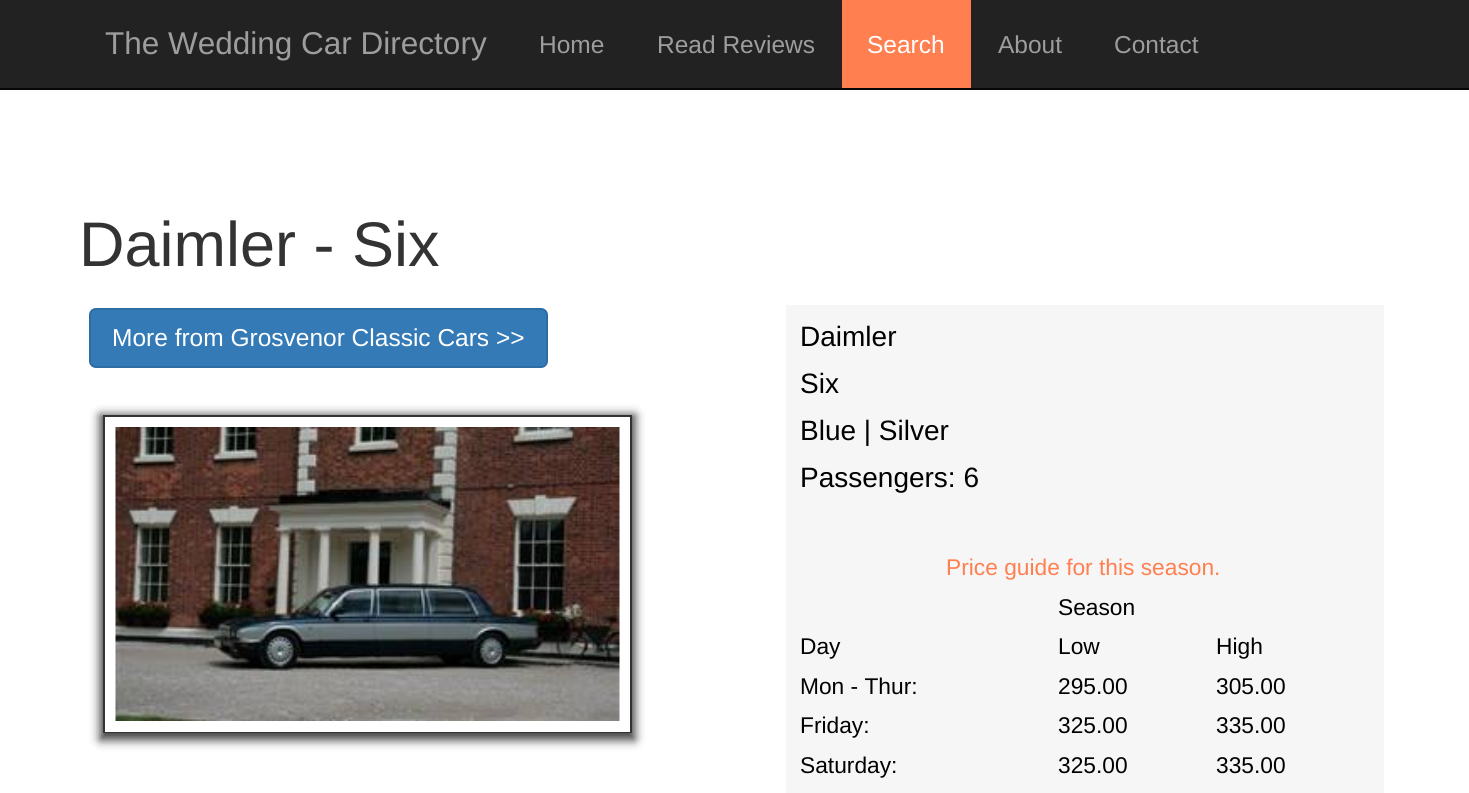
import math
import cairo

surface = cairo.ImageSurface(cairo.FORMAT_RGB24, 1469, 793)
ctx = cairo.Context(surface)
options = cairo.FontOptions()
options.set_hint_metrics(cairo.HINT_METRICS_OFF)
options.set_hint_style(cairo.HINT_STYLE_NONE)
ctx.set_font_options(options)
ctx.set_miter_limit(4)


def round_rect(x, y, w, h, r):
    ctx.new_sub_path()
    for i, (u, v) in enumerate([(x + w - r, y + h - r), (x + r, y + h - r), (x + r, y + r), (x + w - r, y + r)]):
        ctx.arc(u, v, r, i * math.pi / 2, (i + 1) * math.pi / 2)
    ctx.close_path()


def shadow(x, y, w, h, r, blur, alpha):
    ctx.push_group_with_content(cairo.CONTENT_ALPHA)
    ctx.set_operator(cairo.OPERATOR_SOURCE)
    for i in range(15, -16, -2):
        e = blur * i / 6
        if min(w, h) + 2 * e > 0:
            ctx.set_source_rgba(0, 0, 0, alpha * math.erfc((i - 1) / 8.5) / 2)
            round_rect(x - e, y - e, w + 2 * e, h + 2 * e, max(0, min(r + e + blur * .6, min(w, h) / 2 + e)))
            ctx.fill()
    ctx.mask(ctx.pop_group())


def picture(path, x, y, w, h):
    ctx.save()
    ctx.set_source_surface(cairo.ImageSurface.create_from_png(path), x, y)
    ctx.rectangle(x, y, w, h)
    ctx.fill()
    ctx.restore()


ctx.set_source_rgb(1, 1, 1)
ctx.paint()
ctx.set_source_rgb(0.133, 0.133, 0.133)
ctx.rectangle(0, 0, 1469, 88)
ctx.fill()
ctx.set_source_rgb(0.031, 0.031, 0.031)
ctx.rectangle(0, 88, 1469, 2)
ctx.fill()
ctx.select_font_face("Liberation Sans")
ctx.set_font_size(31.5)
ctx.set_source_rgb(0.616, 0.616, 0.616)
ctx.move_to(105, 54)
ctx.show_text("The Wedding Car Directory")
ctx.set_font_size(24.5)
ctx.move_to(539, 53)
ctx.show_text("Home")
ctx.move_to(657, 53)
ctx.show_text("Read Reviews")
ctx.set_source_rgb(1, 0.498, 0.314)
ctx.rectangle(842, 0, 129, 88)
ctx.fill()
ctx.set_source_rgb(1, 1, 1)
ctx.move_to(867, 53)
ctx.show_text("Search")
ctx.set_source_rgb(0.616, 0.616, 0.616)
ctx.move_to(998, 53)
ctx.show_text("About")
ctx.move_to(1114, 53)
ctx.show_text("Contact")
ctx.set_font_size(63)
ctx.set_source_rgb(0.2, 0.2, 0.2)
ctx.move_to(79, 266)
ctx.show_text("Daimler - Six")
ctx.set_source_rgb(0.2, 0.478, 0.718)
round_rect(90, 309, 457, 58, 6)
ctx.fill_preserve()
ctx.set_source_rgb(0.18, 0.427, 0.643)
ctx.stroke()
ctx.set_font_size(24.5)
ctx.set_source_rgb(1, 1, 1)
ctx.move_to(112, 346)
ctx.show_text("More from Grosvenor Classic Cars >>")
ctx.set_source_rgb(0, 0, 0)
shadow(100, 415, 535, 325, 0, 5, 0.75)
ctx.rectangle(104, 416, 527, 316)
ctx.set_source_rgb(0.2, 0.2, 0.2)
ctx.stroke()
ctx.rectangle(110.5, 422.5, 514, 304)
ctx.set_source_rgb(1, 1, 1)
ctx.set_line_width(11)
ctx.stroke()
picture("img1.png", 115, 427, 505, 294)
ctx.set_source_rgb(0.961, 0.961, 0.961)
ctx.rectangle(786, 305, 598, 488)
ctx.fill()
ctx.set_font_size(28)
ctx.set_source_rgb(0, 0, 0)
ctx.move_to(800, 346)
ctx.show_text("Daimler")
ctx.move_to(800, 393)
ctx.show_text("Six")
ctx.move_to(800, 440)
ctx.show_text("Blue | Silver")
ctx.move_to(800, 487)
ctx.show_text("Passengers: 6")
ctx.set_font_size(22.75)
ctx.set_source_rgb(1, 0.498, 0.314)
ctx.move_to(946, 575)
ctx.show_text("Price guide for this season.")
ctx.set_source_rgb(0, 0, 0)
ctx.move_to(1058, 615)
ctx.show_text("Season")
ctx.move_to(800, 654)
ctx.show_text("Day")
ctx.move_to(1058, 654)
ctx.show_text("Low")
ctx.move_to(1216, 654)
ctx.show_text("High")
ctx.move_to(800, 694)
ctx.show_text("Mon - Thur:")
ctx.move_to(1058, 694)
ctx.show_text("295.00")
ctx.move_to(1216, 694)
ctx.show_text("305.00")
ctx.move_to(800, 733)
ctx.show_text("Friday:")
ctx.move_to(1058, 733)
ctx.show_text("325.00")
ctx.move_to(1216, 733)
ctx.show_text("335.00")
ctx.move_to(800, 773)
ctx.show_text("Saturday:")
ctx.move_to(1058, 773)
ctx.show_text("325.00")
ctx.move_to(1216, 773)
ctx.show_text("335.00")
surface.write_to_png("page.png")
